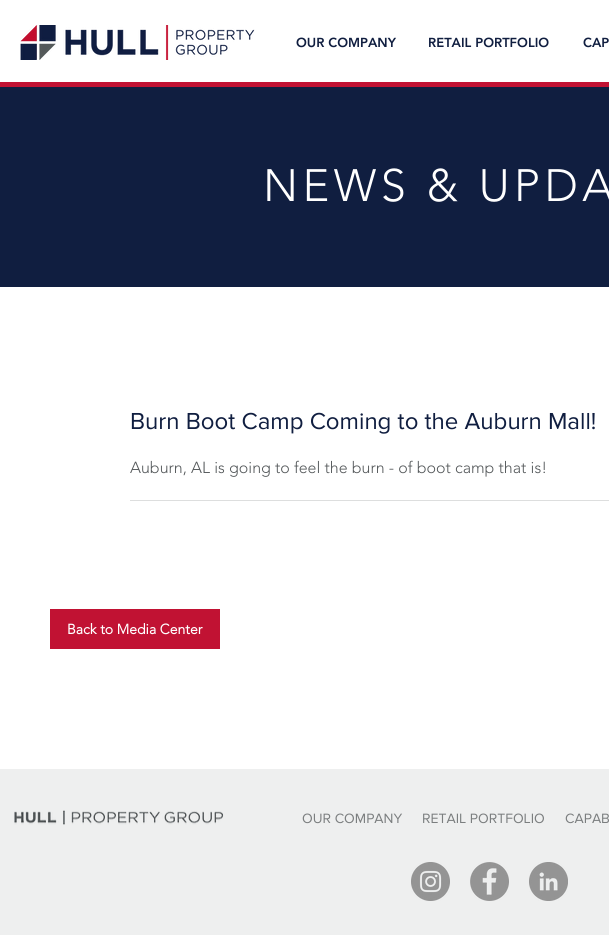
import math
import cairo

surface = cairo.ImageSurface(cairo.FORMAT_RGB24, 609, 935)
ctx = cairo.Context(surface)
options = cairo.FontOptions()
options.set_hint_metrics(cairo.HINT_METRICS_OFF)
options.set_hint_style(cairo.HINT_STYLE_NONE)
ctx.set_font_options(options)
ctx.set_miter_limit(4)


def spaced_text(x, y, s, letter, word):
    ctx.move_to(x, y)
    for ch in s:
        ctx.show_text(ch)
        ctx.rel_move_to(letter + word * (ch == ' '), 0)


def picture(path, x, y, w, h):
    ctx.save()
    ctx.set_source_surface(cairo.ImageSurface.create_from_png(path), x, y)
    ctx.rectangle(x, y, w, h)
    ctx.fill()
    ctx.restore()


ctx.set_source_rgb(1, 1, 1)
ctx.paint()
picture("img1.png", 20, 25, 235, 35)
ctx.select_font_face("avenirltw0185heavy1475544 Black")
ctx.set_font_size(13)
ctx.set_source_rgb(0.063, 0.118, 0.251)
ctx.move_to(296, 47)
ctx.show_text("OUR COMPANY")
ctx.move_to(428, 47)
ctx.show_text("RETAIL PORTFOLIO")
ctx.move_to(583, 47)
ctx.show_text("CAP")
ctx.set_source_rgb(0.757, 0.071, 0.2)
ctx.rectangle(0, 82, 609, 5)
ctx.fill()
ctx.set_source_rgb(0.063, 0.118, 0.251)
ctx.rectangle(0, 87, 609, 200)
ctx.fill()
ctx.select_font_face("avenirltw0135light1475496 Light")
ctx.set_font_size(45)
ctx.set_source_rgb(1, 1, 1)
spaced_text(263, 201, "NEWS & UPDA", 4.5, 0)
ctx.select_font_face("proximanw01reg")
ctx.set_font_size(24)
ctx.set_source_rgb(0.063, 0.118, 0.251)
ctx.move_to(130, 429)
ctx.show_text("Burn Boot Camp Coming to the Auburn Mall!")
ctx.select_font_face("avenirltw0135light1475496 Light")
ctx.set_font_size(16)
ctx.set_source_rgb(0.329, 0.345, 0.353)
ctx.move_to(130, 473)
ctx.show_text("Auburn, AL is going to feel the burn - of boot camp that is!")
ctx.set_source_rgb(0.867, 0.871, 0.871)
ctx.rectangle(130, 500, 479, 1)
ctx.fill()
ctx.set_source_rgb(0.757, 0.071, 0.2)
ctx.rectangle(50, 609, 170, 40)
ctx.fill()
ctx.select_font_face("avenirltw0135light1475496", cairo.FONT_SLANT_NORMAL, cairo.FONT_WEIGHT_BOLD)
ctx.set_font_size(14)
ctx.set_source_rgb(1, 1, 1)
ctx.move_to(67, 634)
ctx.show_text("Back to Media Center")
ctx.set_source_rgb(0.933, 0.937, 0.937)
ctx.rectangle(0, 769, 609, 166)
ctx.fill()
picture("img2.png", 14, 810, 210, 15)
ctx.select_font_face("proximanw01reg")
ctx.set_source_rgb(0.482, 0.494, 0.498)
ctx.move_to(302, 823)
ctx.show_text("OUR COMPANY")
ctx.move_to(422, 823)
ctx.show_text("RETAIL PORTFOLIO")
ctx.move_to(565, 823)
ctx.show_text("CAPAB")
picture("img3.png", 411, 862, 39, 39)
picture("img4.png", 470, 862, 39, 39)
picture("img5.png", 529, 862, 39, 39)
surface.write_to_png("page.png")
